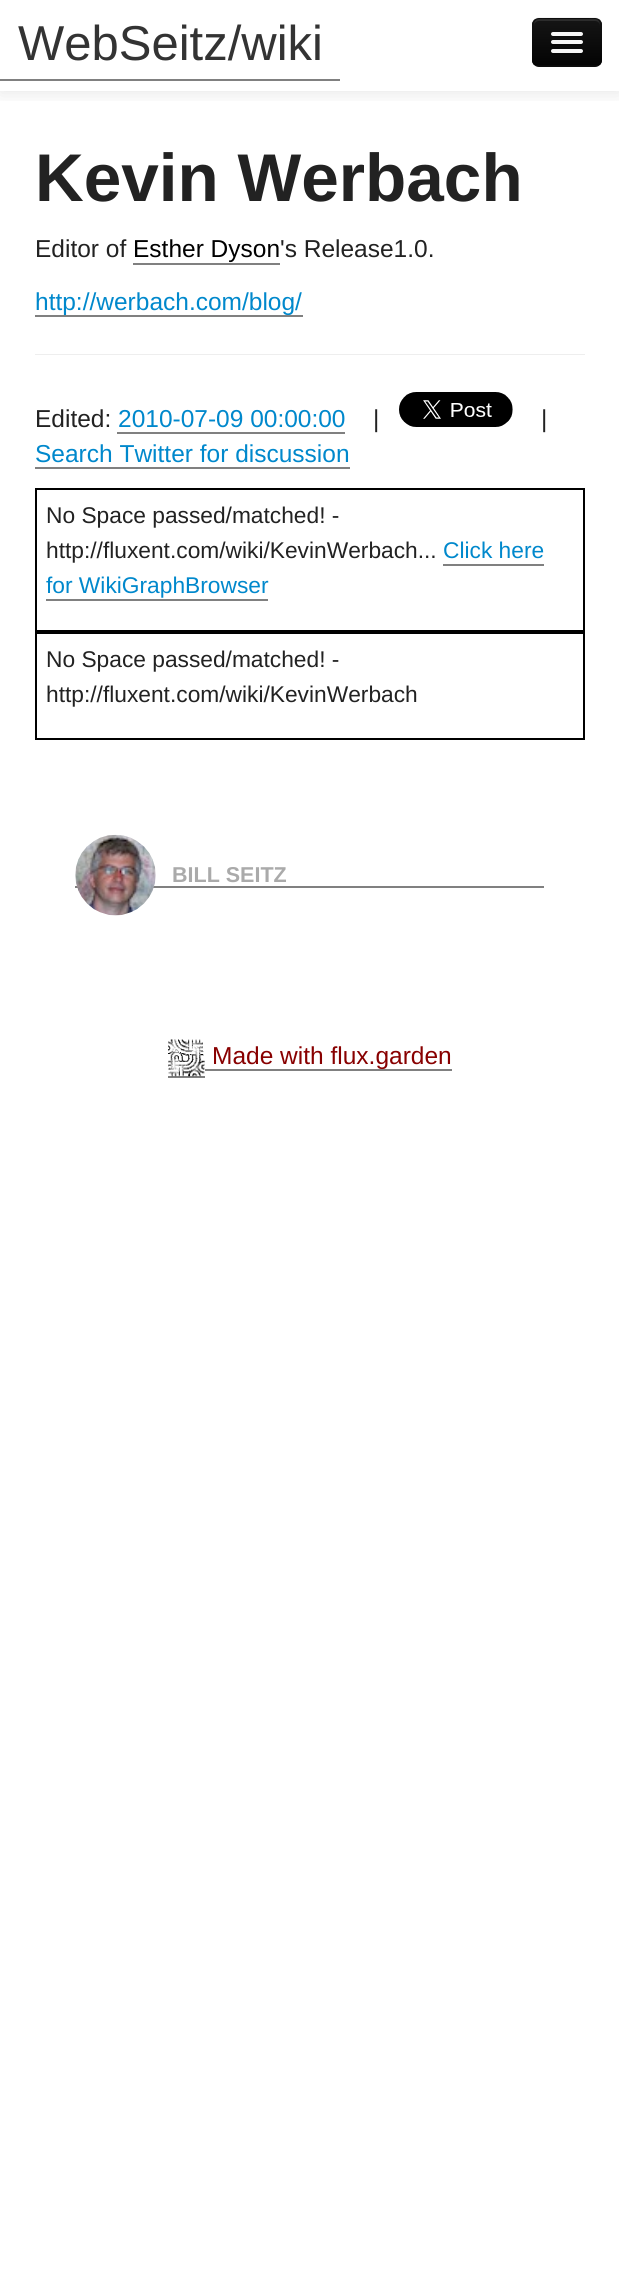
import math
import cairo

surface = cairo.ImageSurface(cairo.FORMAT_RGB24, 619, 2294)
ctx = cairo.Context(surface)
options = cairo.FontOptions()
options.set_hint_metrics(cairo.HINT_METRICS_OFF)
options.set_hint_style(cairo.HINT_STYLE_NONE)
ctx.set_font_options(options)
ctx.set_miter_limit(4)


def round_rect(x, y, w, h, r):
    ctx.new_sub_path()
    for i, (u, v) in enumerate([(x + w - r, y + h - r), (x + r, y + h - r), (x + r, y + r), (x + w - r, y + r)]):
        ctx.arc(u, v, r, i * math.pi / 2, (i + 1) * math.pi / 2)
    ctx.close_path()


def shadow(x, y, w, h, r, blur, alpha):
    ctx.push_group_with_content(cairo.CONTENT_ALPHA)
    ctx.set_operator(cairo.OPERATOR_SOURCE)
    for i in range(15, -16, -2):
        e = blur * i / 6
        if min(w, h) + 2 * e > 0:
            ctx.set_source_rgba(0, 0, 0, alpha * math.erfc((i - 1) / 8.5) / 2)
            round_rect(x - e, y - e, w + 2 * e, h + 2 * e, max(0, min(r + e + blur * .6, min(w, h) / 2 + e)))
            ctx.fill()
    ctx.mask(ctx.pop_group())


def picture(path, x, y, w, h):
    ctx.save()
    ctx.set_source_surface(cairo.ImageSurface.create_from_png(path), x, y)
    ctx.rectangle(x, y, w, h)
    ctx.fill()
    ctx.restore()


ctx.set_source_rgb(1, 1, 1)
ctx.paint()
ctx.save()
ctx.rectangle(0, 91, 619, 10)
ctx.clip()
ctx.set_source_rgb(0, 0, 0)
shadow(0, 2, 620, 91, 0, 9, 0.1)
ctx.restore()
ctx.set_source_rgb(0.502, 0.502, 0.502)
ctx.rectangle(0, 79, 340, 2)
ctx.fill()
ctx.select_font_face("Liberation Sans")
ctx.set_font_size(49)
ctx.set_source_rgb(0.2, 0.2, 0.2)
ctx.move_to(18, 60)
ctx.show_text("WebSeitz/wiki")
ctx.set_source_rgb(0.055, 0.055, 0.055)
round_rect(532, 18, 70, 49, 7)
ctx.fill()
ctx.save()
round_rect(532, 18, 70, 49, 7)
ctx.clip()
gradient = cairo.LinearGradient(567, 19, 567, 65)
gradient.add_color_stop_rgba(0, 0.082, 0.082, 0.082, 1)
gradient.add_color_stop_rgba(1, 0.016, 0.016, 0.016, 1)
ctx.set_source(gradient)
ctx.rectangle(532, 19, 70, 46)
ctx.fill()
ctx.restore()
ctx.set_source_rgb(0.173, 0.173, 0.173)
ctx.new_path()
ctx.move_to(539, 21)
ctx.line_to(595, 21)
ctx.curve_to(598, 21, 600, 23, 600, 26)
ctx.curve_to(600, 17, 593, 19, 586, 19)
ctx.line_to(548, 19)
ctx.curve_to(541, 19, 534, 17, 534, 26)
ctx.curve_to(534, 23, 536, 21, 539, 21)
ctx.close_path()
ctx.fill()
ctx.new_path()
ctx.move_to(599.5, 64)
ctx.curve_to(598, 65, 596.5, 65.5, 595, 65.5)
ctx.line_to(539, 65.5)
ctx.curve_to(537.5, 65.5, 536, 65, 534.5, 64)
ctx.set_source_rgba(0, 0, 0, 0.25)
ctx.set_line_width(1.8)
ctx.stroke()
ctx.new_path()
ctx.move_to(534.5, 64)
ctx.curve_to(533.5, 62.5, 533, 61, 533, 59.5)
ctx.line_to(533, 24.5)
ctx.curve_to(533, 23, 533.5, 21.5, 534.5, 20)
ctx.curve_to(536, 19, 537.5, 18.5, 539, 18.5)
ctx.line_to(595, 18.5)
ctx.curve_to(596.5, 18.5, 598, 19, 599.5, 20)
ctx.curve_to(600.5, 21.5, 601, 23, 601, 24.5)
ctx.line_to(601, 59.5)
ctx.curve_to(601, 61, 600.5, 62.5, 599.5, 64)
ctx.set_source_rgba(0, 0, 0, 0.1)
ctx.stroke()
ctx.set_source_rgb(0.043, 0.043, 0.043)
ctx.new_path()
ctx.move_to(551.5, 34)
ctx.line_to(551, 35.5)
ctx.curve_to(551.5, 38, 556.5, 37, 557.5, 37)
ctx.line_to(576.5, 37)
ctx.curve_to(577.5, 37, 582.5, 38, 583, 35.5)
ctx.line_to(582.5, 34)
ctx.curve_to(582.5, 34.5, 582, 35, 581, 35)
ctx.line_to(553, 35)
ctx.curve_to(552, 35, 551.5, 34.5, 551.5, 34)
ctx.close_path()
ctx.fill()
ctx.set_source_rgb(0.961, 0.961, 0.961)
round_rect(551, 32, 32, 4, 2)
ctx.fill()
ctx.set_source_rgb(0.035, 0.035, 0.035)
ctx.new_path()
ctx.move_to(551.5, 43)
ctx.line_to(551, 44.5)
ctx.curve_to(551.5, 47, 556.5, 46, 557.5, 46)
ctx.line_to(576.5, 46)
ctx.curve_to(577.5, 46, 582.5, 47, 583, 44.5)
ctx.line_to(582.5, 43)
ctx.curve_to(582.5, 43.5, 581.5, 44, 581, 44)
ctx.line_to(553, 44)
ctx.curve_to(552.5, 44, 551.5, 43.5, 551.5, 43)
ctx.close_path()
ctx.fill()
ctx.set_source_rgb(0.961, 0.961, 0.961)
round_rect(551, 40, 32, 4, 2)
ctx.fill()
ctx.set_source_rgb(0.024, 0.024, 0.024)
ctx.new_path()
ctx.move_to(551.5, 51.5)
ctx.curve_to(550.5, 53, 551, 54.5, 552.5, 55)
ctx.line_to(581.5, 55)
ctx.curve_to(583, 54.5, 583.5, 53, 582.5, 51.5)
ctx.line_to(581, 52.5)
ctx.line_to(553, 52.5)
ctx.close_path()
ctx.fill()
ctx.set_source_rgb(0.961, 0.961, 0.961)
round_rect(551, 49, 32, 4, 2)
ctx.fill()
ctx.select_font_face("Liberation Sans", cairo.FONT_SLANT_NORMAL, cairo.FONT_WEIGHT_BOLD)
ctx.set_font_size(67.5)
ctx.set_source_rgb(0.133, 0.133, 0.133)
ctx.move_to(35, 201)
ctx.show_text("Kevin Werbach")
ctx.select_font_face("Liberation Sans")
ctx.set_font_size(24.5)
ctx.move_to(35, 257)
ctx.show_text("Editor of")
ctx.set_source_rgb(0, 0, 0)
ctx.move_to(133, 257)
ctx.show_text("Esther Dyson")
ctx.set_source_rgb(0.502, 0.502, 0.502)
ctx.rectangle(133, 263, 147, 2)
ctx.fill()
ctx.set_source_rgb(0.133, 0.133, 0.133)
ctx.move_to(280, 257)
ctx.show_text("'s Release1.0.")
ctx.set_source_rgb(0.502, 0.502, 0.502)
ctx.rectangle(35, 315, 268, 2)
ctx.fill()
ctx.set_source_rgb(0, 0.533, 0.8)
ctx.move_to(35, 310)
ctx.show_text("http://werbach.com/blog/")
ctx.set_source_rgb(0.933, 0.933, 0.933)
ctx.rectangle(35, 354, 550, 1)
ctx.fill()
ctx.set_source_rgb(0.133, 0.133, 0.133)
ctx.move_to(35, 427)
ctx.show_text("Edited:")
ctx.set_source_rgb(0, 0.533, 0.8)
ctx.move_to(118, 427)
ctx.show_text("2010-07-09 00:00:00")
ctx.set_source_rgb(0.502, 0.502, 0.502)
ctx.rectangle(117, 432, 228, 2)
ctx.fill()
ctx.set_source_rgb(0.133, 0.133, 0.133)
ctx.move_to(373, 427)
ctx.show_text("|")
picture("img1.png", 399, 392, 114, 35)
ctx.move_to(541, 427)
ctx.show_text("|")
ctx.set_source_rgb(0, 0.533, 0.8)
ctx.move_to(35, 462)
ctx.show_text("Search Twitter for discussion")
ctx.set_source_rgb(0.502, 0.502, 0.502)
ctx.rectangle(35, 467, 315, 2)
ctx.fill()
ctx.rectangle(36, 489, 548, 142)
ctx.set_source_rgb(0, 0, 0)
ctx.set_line_width(2)
ctx.stroke()
ctx.set_font_size(22.75)
ctx.set_source_rgb(0.133, 0.133, 0.133)
ctx.move_to(46, 523)
ctx.show_text("No Space passed/matched! -")
ctx.move_to(46, 558)
ctx.show_text("http://fluxent.com/wiki/KevinWerbach...")
ctx.set_source_rgb(0, 0.533, 0.8)
ctx.move_to(443, 558)
ctx.show_text("Click here")
ctx.set_source_rgb(0.502, 0.502, 0.502)
ctx.rectangle(443, 564, 101, 2)
ctx.fill()
ctx.set_source_rgb(0, 0.533, 0.8)
ctx.move_to(46, 593)
ctx.show_text("for WikiGraphBrowser")
ctx.set_source_rgb(0.502, 0.502, 0.502)
ctx.rectangle(46, 599, 222, 2)
ctx.fill()
ctx.rectangle(36, 633, 548, 106)
ctx.set_source_rgb(0, 0, 0)
ctx.stroke()
ctx.set_source_rgb(0.133, 0.133, 0.133)
ctx.move_to(46, 667)
ctx.show_text("No Space passed/matched! -")
ctx.move_to(46, 702)
ctx.show_text("http://fluxent.com/wiki/KevinWerbach")
ctx.set_source_rgb(0.502, 0.502, 0.502)
ctx.rectangle(75, 886, 469, 2)
ctx.fill()
picture("img2.png", 75, 834, 81, 82)
ctx.select_font_face("Liberation Sans", cairo.FONT_SLANT_NORMAL, cairo.FONT_WEIGHT_BOLD)
ctx.set_font_size(21.5)
ctx.set_source_rgb(0.667, 0.667, 0.667)
ctx.move_to(172, 882)
ctx.show_text("BILL SEITZ")
ctx.set_source_rgb(0.502, 0.502, 0.502)
ctx.rectangle(168, 1076, 37, 2)
ctx.fill()
picture("img3.png", 168, 1039, 37, 38)
ctx.rectangle(205, 1069, 247, 2)
ctx.fill()
ctx.select_font_face("Liberation Sans")
ctx.set_font_size(24.5)
ctx.set_source_rgb(0.533, 0, 0)
ctx.move_to(212, 1064)
ctx.show_text("Made with flux.garden")
surface.write_to_png("page.png")
